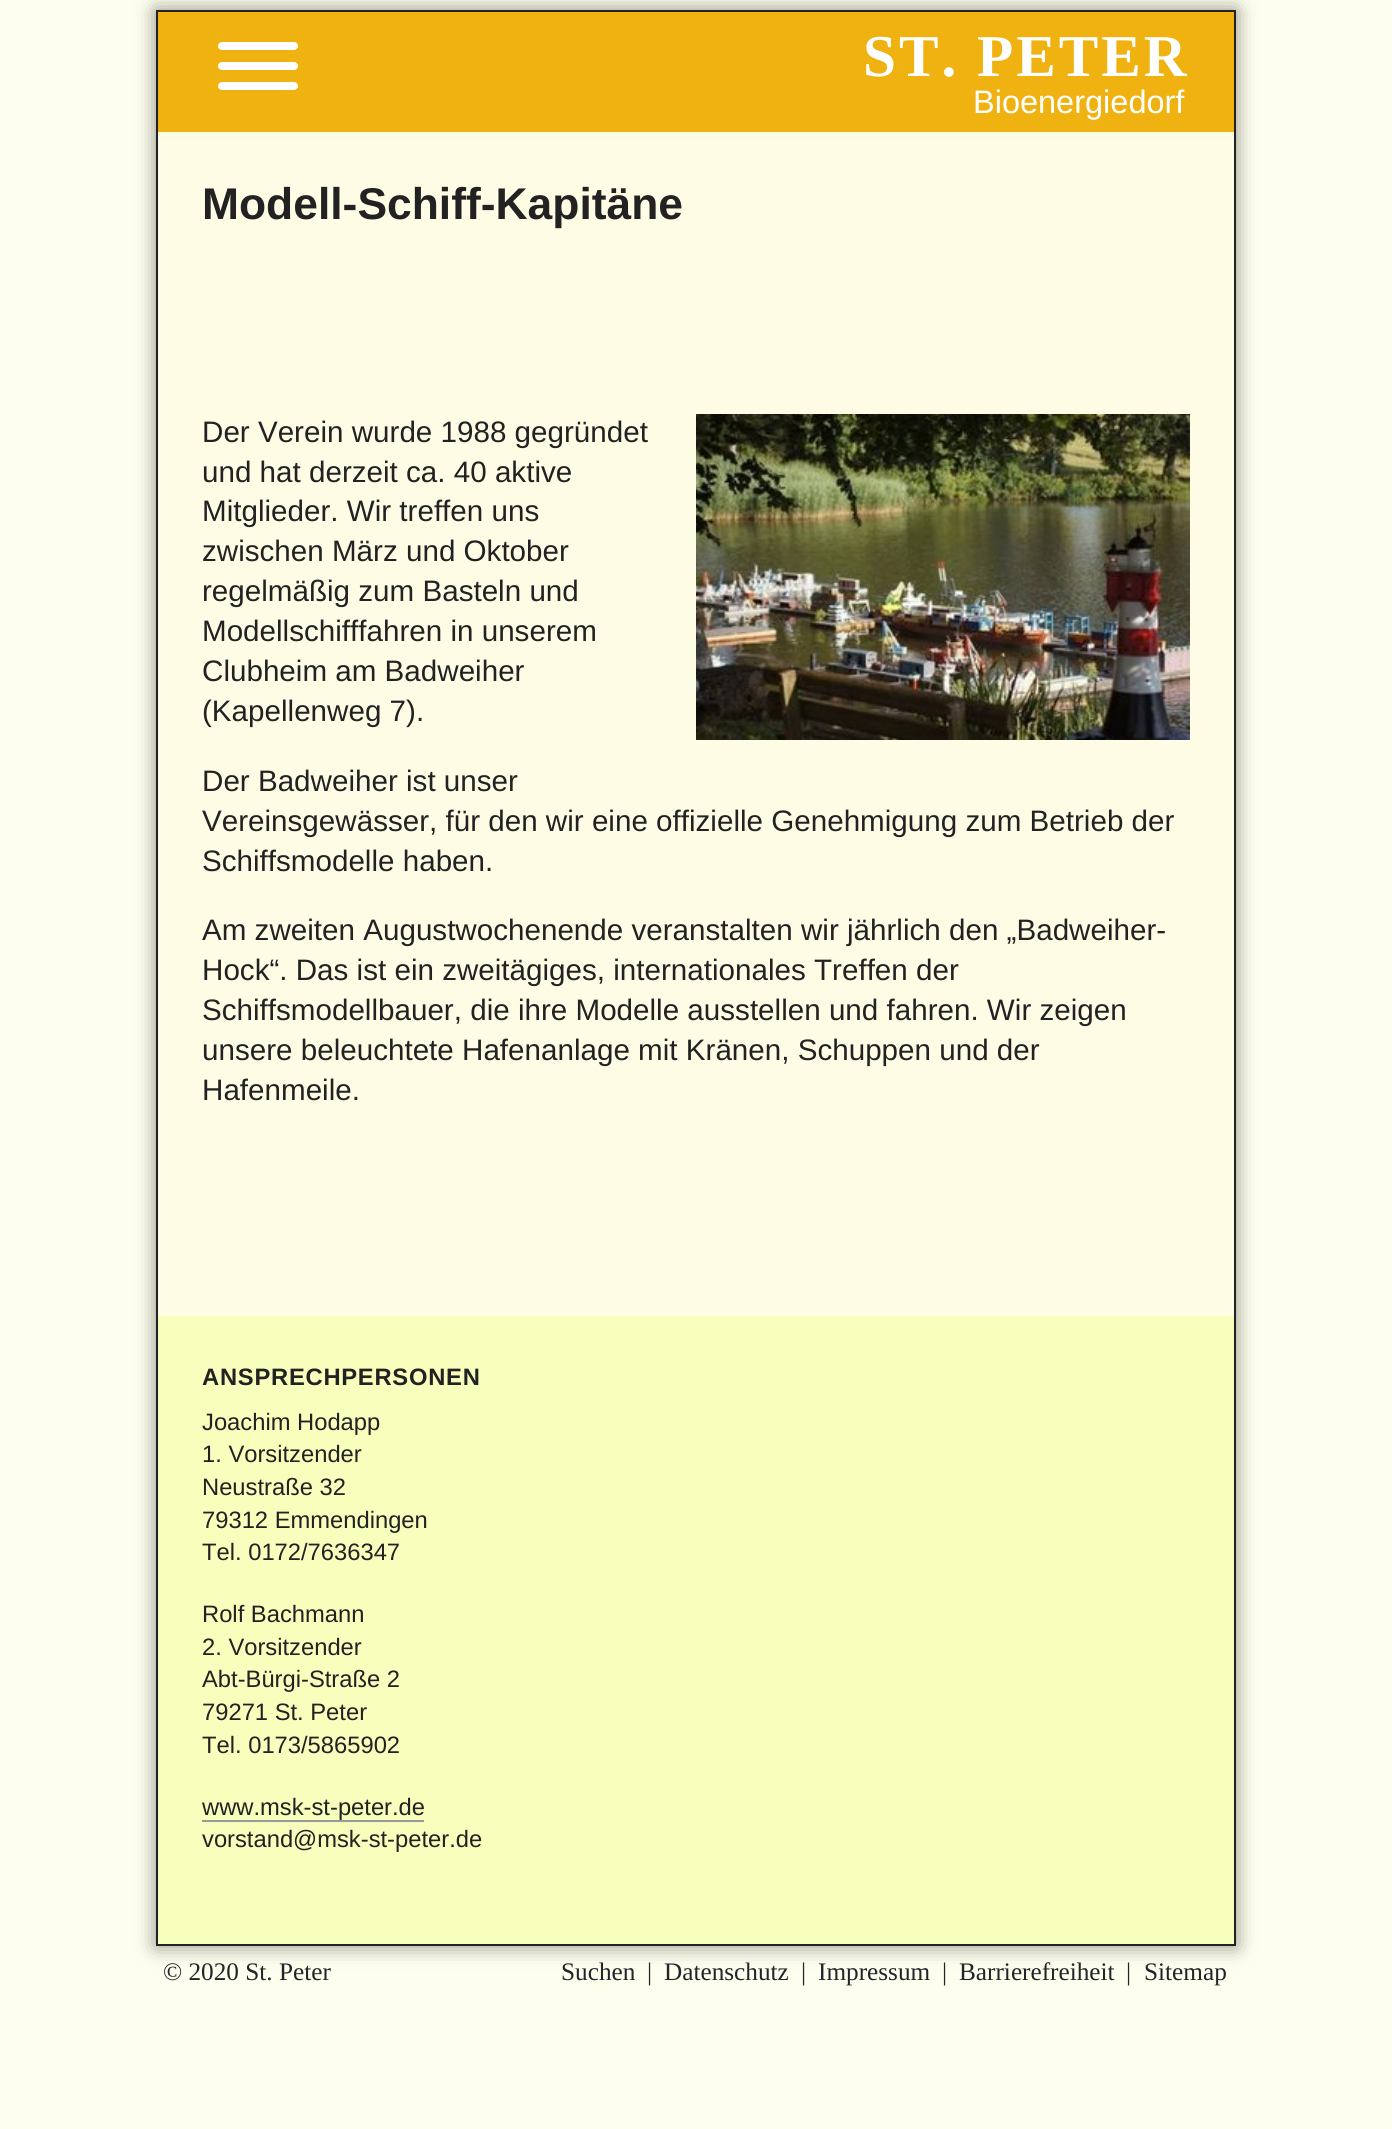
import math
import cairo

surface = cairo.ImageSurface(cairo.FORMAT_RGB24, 1392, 2129)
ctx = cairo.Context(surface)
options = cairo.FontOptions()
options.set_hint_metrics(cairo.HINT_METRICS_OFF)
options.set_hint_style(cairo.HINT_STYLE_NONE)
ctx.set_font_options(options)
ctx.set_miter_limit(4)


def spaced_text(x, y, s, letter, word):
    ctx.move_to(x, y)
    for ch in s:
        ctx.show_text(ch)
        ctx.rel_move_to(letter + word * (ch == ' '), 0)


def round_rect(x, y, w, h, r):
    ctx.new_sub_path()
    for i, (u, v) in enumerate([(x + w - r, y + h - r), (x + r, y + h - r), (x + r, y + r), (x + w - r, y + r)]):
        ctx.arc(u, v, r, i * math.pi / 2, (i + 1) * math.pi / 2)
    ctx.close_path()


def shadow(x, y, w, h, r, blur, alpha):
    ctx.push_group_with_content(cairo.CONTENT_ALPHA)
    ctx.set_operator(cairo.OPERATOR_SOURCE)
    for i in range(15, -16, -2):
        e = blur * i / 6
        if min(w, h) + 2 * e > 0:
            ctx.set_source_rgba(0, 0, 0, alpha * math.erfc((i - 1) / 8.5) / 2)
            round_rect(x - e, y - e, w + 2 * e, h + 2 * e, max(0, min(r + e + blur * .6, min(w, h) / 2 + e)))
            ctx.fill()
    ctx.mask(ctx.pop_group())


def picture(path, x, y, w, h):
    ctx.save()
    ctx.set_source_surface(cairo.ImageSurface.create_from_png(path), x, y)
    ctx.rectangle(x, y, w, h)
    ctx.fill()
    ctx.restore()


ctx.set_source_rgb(0.996, 0.996, 0.933)
ctx.paint()
ctx.set_source_rgb(0, 0, 0)
shadow(156, 10, 1080, 1936, 0, 10, 0.45)
ctx.set_source_rgb(0.937, 0.698, 0.063)
ctx.rectangle(158, 12, 1076, 120)
ctx.fill()
ctx.rectangle(157, 11, 1078, 1934)
ctx.set_source_rgb(0.133, 0.133, 0.133)
ctx.stroke()
ctx.set_source_rgb(1, 1, 1)
round_rect(218, 82, 80, 8, 4)
ctx.fill()
round_rect(218, 42, 80, 8, 4)
ctx.fill()
round_rect(218, 62, 80, 8, 4)
ctx.fill()
ctx.select_font_face("Liberation Serif", cairo.FONT_SLANT_NORMAL, cairo.FONT_WEIGHT_BOLD)
ctx.set_font_size(59.25)
spaced_text(863, 76, "ST. PETER", 3, 0)
ctx.select_font_face("Liberation Sans")
ctx.set_font_size(32.5)
ctx.move_to(973, 113)
ctx.show_text("Bioenergiedorf")
ctx.set_source_rgb(1, 0.988, 0.902)
ctx.rectangle(158, 132, 1076, 1184)
ctx.fill()
ctx.select_font_face("Liberation Sans", cairo.FONT_SLANT_NORMAL, cairo.FONT_WEIGHT_BOLD)
ctx.set_font_size(44.4)
ctx.set_source_rgb(0.133, 0.133, 0.133)
ctx.move_to(202, 219)
ctx.show_text("Modell-Schiff-Kapitäne")
picture("img1.png", 696, 414, 494, 326)
ctx.select_font_face("Liberation Sans")
ctx.set_font_size(29.6)
ctx.move_to(202, 442)
ctx.show_text("Der Verein wurde 1988 gegründet")
ctx.move_to(202, 482)
ctx.show_text("und hat derzeit ca. 40 aktive")
ctx.move_to(202, 521)
ctx.show_text("Mitglieder. Wir treffen uns")
ctx.move_to(202, 561)
ctx.show_text("zwischen März und Oktober")
ctx.move_to(202, 601)
ctx.show_text("regelmäßig zum Basteln und")
ctx.move_to(202, 641)
ctx.show_text("Modellschifffahren in unserem")
ctx.move_to(202, 681)
ctx.show_text("Clubheim am Badweiher")
ctx.move_to(202, 721)
ctx.show_text("(Kapellenweg 7).")
ctx.move_to(202, 791)
ctx.show_text("Der Badweiher ist unser")
ctx.move_to(202, 831)
ctx.show_text("Vereinsgewässer, für den wir eine offizielle Genehmigung zum Betrieb der")
ctx.move_to(202, 871)
ctx.show_text("Schiffsmodelle haben.")
ctx.move_to(202, 940)
ctx.show_text("Am zweiten Augustwochenende veranstalten wir jährlich den „Badweiher-")
ctx.move_to(202, 980)
ctx.show_text("Hock“. Das ist ein zweitägiges, internationales Treffen der")
ctx.move_to(202, 1020)
ctx.show_text("Schiffsmodellbauer, die ihre Modelle ausstellen und fahren. Wir zeigen")
ctx.move_to(202, 1060)
ctx.show_text("unsere beleuchtete Hafenanlage mit Kränen, Schuppen und der")
ctx.move_to(202, 1100)
ctx.show_text("Hafenmeile.")
ctx.set_source_rgb(0.969, 1, 0.741)
ctx.rectangle(158, 1316, 1076, 628)
ctx.fill()
ctx.select_font_face("Liberation Sans", cairo.FONT_SLANT_NORMAL, cairo.FONT_WEIGHT_BOLD)
ctx.set_font_size(23.75)
ctx.set_source_rgb(0.133, 0.133, 0.133)
spaced_text(202, 1385, "ANSPRECHPERSONEN", 0.75, 0)
ctx.select_font_face("Liberation Sans")
ctx.move_to(202, 1430)
ctx.show_text("Joachim Hodapp")
ctx.move_to(202, 1462)
ctx.show_text("1. Vorsitzender")
ctx.move_to(202, 1495)
ctx.show_text("Neustraße 32")
ctx.move_to(202, 1528)
ctx.show_text("79312 Emmendingen")
ctx.move_to(202, 1560)
ctx.show_text("Tel. 0172/7636347")
ctx.move_to(202, 1622)
ctx.show_text("Rolf Bachmann")
ctx.move_to(202, 1655)
ctx.show_text("2. Vorsitzender")
ctx.move_to(202, 1687)
ctx.show_text("Abt-Bürgi-Straße 2")
ctx.move_to(202, 1720)
ctx.show_text("79271 St. Peter")
ctx.move_to(202, 1753)
ctx.show_text("Tel. 0173/5865902")
ctx.move_to(202, 1815)
ctx.show_text("www.msk-st-peter.de")
ctx.set_source_rgb(0.6, 0.6, 0.6)
ctx.rectangle(202, 1820, 222, 2)
ctx.fill()
ctx.set_source_rgb(0.133, 0.133, 0.133)
ctx.move_to(202, 1847)
ctx.show_text("vorstand@msk-st-peter.de")
ctx.select_font_face("Liberation Serif")
ctx.set_font_size(25.25)
ctx.set_source_rgb(0.129, 0.145, 0.161)
ctx.move_to(163, 1980)
ctx.show_text("© 2020 St. Peter")
ctx.move_to(561, 1980)
ctx.show_text("Suchen")
ctx.move_to(647, 1980)
ctx.show_text("|")
ctx.move_to(664, 1980)
ctx.show_text("Datenschutz")
ctx.move_to(801, 1980)
ctx.show_text("|")
ctx.move_to(818, 1980)
ctx.show_text("Impressum")
ctx.move_to(942, 1980)
ctx.show_text("|")
ctx.move_to(959, 1980)
ctx.show_text("Barrierefreiheit")
ctx.move_to(1126, 1980)
ctx.show_text("|")
ctx.move_to(1144, 1980)
ctx.show_text("Sitemap")
surface.write_to_png("page.png")
